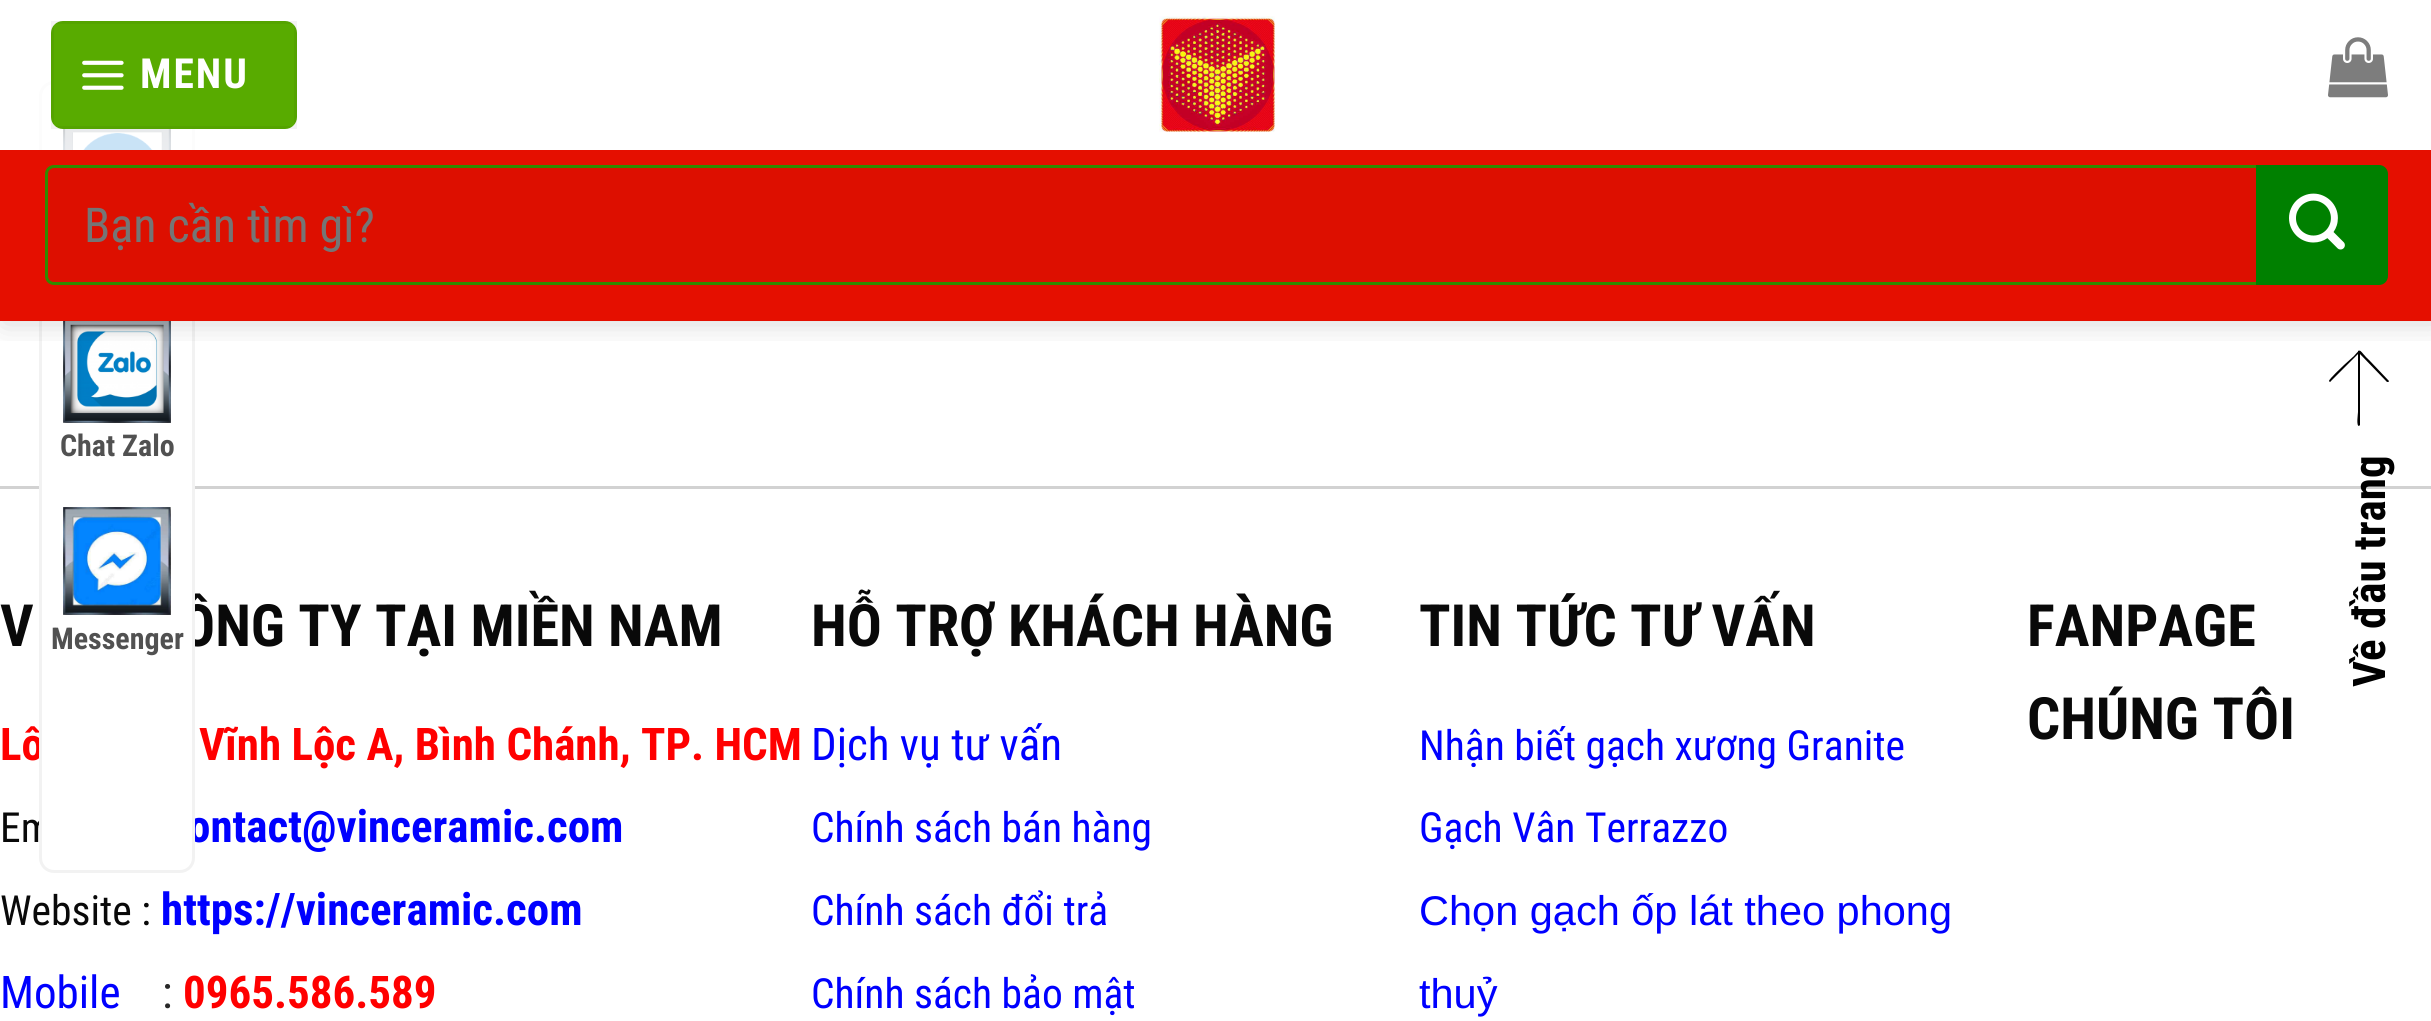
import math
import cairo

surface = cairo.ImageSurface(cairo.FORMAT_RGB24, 2431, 1021)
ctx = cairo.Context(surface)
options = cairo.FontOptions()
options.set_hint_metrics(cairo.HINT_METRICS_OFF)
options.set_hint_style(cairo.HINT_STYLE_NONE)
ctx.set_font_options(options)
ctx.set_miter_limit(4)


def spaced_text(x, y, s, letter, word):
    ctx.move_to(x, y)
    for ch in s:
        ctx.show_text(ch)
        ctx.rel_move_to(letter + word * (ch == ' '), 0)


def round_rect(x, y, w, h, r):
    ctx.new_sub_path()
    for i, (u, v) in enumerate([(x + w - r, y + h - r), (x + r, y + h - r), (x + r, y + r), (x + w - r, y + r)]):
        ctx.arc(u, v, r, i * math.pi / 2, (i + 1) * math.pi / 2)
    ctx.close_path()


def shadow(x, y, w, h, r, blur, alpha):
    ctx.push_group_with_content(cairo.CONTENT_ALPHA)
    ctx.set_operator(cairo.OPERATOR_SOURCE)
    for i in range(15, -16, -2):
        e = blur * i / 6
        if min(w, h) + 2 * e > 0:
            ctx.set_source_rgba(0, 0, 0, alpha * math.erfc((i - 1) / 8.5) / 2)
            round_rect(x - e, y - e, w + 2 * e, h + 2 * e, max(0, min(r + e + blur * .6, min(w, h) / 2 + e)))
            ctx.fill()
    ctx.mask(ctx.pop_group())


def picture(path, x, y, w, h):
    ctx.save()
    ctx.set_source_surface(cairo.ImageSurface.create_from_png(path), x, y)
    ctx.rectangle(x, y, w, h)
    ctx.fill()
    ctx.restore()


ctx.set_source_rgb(1, 1, 1)
ctx.paint()
ctx.set_source_rgb(0, 0, 0)
ctx.new_path()
ctx.move_to(2360, 352)
ctx.line_to(2360, 425)
ctx.line_to(2359, 426)
ctx.curve_to(2356, 426, 2358, 414, 2358, 412)
ctx.line_to(2358, 351)
ctx.curve_to(2359, 350, 2360, 351, 2360, 352)
ctx.close_path()
ctx.fill()
ctx.new_path()
ctx.move_to(2389, 381)
ctx.curve_to(2389, 382, 2388, 382, 2387, 382)
ctx.line_to(2359, 353)
ctx.line_to(2331, 381)
ctx.curve_to(2331, 382, 2329, 382, 2329, 381)
ctx.curve_to(2329, 379, 2342, 367, 2344, 365)
ctx.line_to(2354, 356)
ctx.curve_to(2362, 347, 2358, 350, 2370, 361)
ctx.close_path()
ctx.fill()
ctx.set_source_rgb(0.824, 0.824, 0.824)
ctx.rectangle(0, 486, 2431, 3)
ctx.fill()
ctx.select_font_face("Roboto Condensed", cairo.FONT_SLANT_NORMAL, cairo.FONT_WEIGHT_BOLD)
ctx.set_font_size(58.25)
ctx.set_source_rgb(0.039, 0.039, 0.039)
ctx.move_to(180, 646)
ctx.show_text("ÔNG TY TẠI MIỀN NAM")
ctx.set_font_size(45)
ctx.set_source_rgb(1, 0, 0)
ctx.move_to(0, 760)
ctx.show_text("Lô")
ctx.select_font_face("Roboto Condensed")
ctx.set_font_size(41.5)
ctx.set_source_rgb(0.039, 0.039, 0.039)
ctx.move_to(0, 842)
ctx.show_text("Em")
ctx.select_font_face("Roboto Condensed", cairo.FONT_SLANT_NORMAL, cairo.FONT_WEIGHT_BOLD)
ctx.set_font_size(45)
ctx.set_source_rgb(0, 0, 1)
ctx.move_to(188, 842)
ctx.show_text("ontact@vinceramic.com")
ctx.set_source_rgb(1, 1, 1)
round_rect(40.5, 82.5, 153, 789, 13.5)
ctx.fill_preserve()
ctx.set_source_rgb(0.949, 0.949, 0.949)
ctx.set_line_width(3)
ctx.stroke()
picture("img5.png", 63, 129, 108, 21)
picture("img6.png", 63, 321, 108, 102)
ctx.save()
ctx.rectangle(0, 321, 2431, 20)
ctx.clip()
ctx.set_source_rgb(0, 0, 0)
shadow(3, 3, 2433, 321, 0, 15, 0.15)
ctx.restore()
ctx.set_source_rgba(1, 1, 1, 0.76)
ctx.rectangle(39, 81, 156, 69)
ctx.fill()
ctx.set_source_rgb(0.345, 0.671, 0)
round_rect(51, 21, 246, 108, 12)
ctx.fill()
ctx.rectangle(52.5, 22.5, 243, 105)
ctx.set_source_rgba(0, 0, 0, 0.05)
ctx.stroke()
picture("img1.png", 82, 60, 42, 30)
ctx.set_font_size(41.5)
ctx.set_source_rgb(1, 1, 1)
spaced_text(140, 88, "MENU", 2, 0)
picture("img2.png", 1159, 16, 116, 116)
picture("img3.png", 2328, 37, 60, 61)
ctx.set_source_rgb(0.898, 0.059, 0)
ctx.rectangle(0, 150, 2431, 171)
ctx.fill()
ctx.set_source_rgb(0.867, 0.059, 0)
round_rect(46.5, 166.5, 2223, 117, 7.5)
ctx.fill_preserve()
ctx.set_source_rgb(0.192, 0.541, 0)
ctx.stroke()
ctx.select_font_face("Roboto Condensed")
ctx.set_font_size(48)
ctx.set_source_rgb(0.459, 0.459, 0.459)
ctx.move_to(84, 242)
ctx.show_text("Bạn cần tìm gì?")
ctx.set_source_rgb(0, 0.502, 0)
ctx.new_path()
ctx.move_to(2256, 165)
ctx.line_to(2379, 165)
ctx.curve_to(2384, 165, 2388, 169, 2388, 174)
ctx.line_to(2388, 276)
ctx.curve_to(2388, 281, 2384, 285, 2379, 285)
ctx.line_to(2256, 285)
ctx.close_path()
ctx.fill()
picture("img4.png", 2289, 193, 56, 57)
ctx.select_font_face("Roboto Condensed", cairo.FONT_SLANT_NORMAL, cairo.FONT_WEIGHT_BOLD)
ctx.set_font_size(58.25)
ctx.set_source_rgb(0.039, 0.039, 0.039)
ctx.move_to(0, 646)
ctx.show_text("V")
ctx.set_font_size(45)
ctx.set_source_rgb(1, 0, 0)
ctx.move_to(199, 760)
ctx.show_text("Vĩnh Lộc A, Bình Chánh, TP. HCM")
ctx.select_font_face("Roboto Condensed")
ctx.set_font_size(41.5)
ctx.set_source_rgb(0.039, 0.039, 0.039)
ctx.move_to(0, 925)
ctx.show_text("Website :")
ctx.select_font_face("Roboto Condensed", cairo.FONT_SLANT_NORMAL, cairo.FONT_WEIGHT_BOLD)
ctx.set_font_size(45)
ctx.set_source_rgb(0, 0, 1)
ctx.move_to(161, 925)
ctx.show_text("https://vinceramic.com")
ctx.select_font_face("Roboto Condensed")
ctx.move_to(0, 1008)
ctx.show_text("Mobile")
ctx.set_source_rgb(0.157, 0.157, 0.157)
ctx.move_to(162, 1008)
ctx.show_text(":")
ctx.select_font_face("Roboto Condensed", cairo.FONT_SLANT_NORMAL, cairo.FONT_WEIGHT_BOLD)
ctx.set_source_rgb(1, 0, 0)
ctx.move_to(183, 1008)
ctx.show_text("0965.586.589")
ctx.set_font_size(58.25)
ctx.set_source_rgb(0.039, 0.039, 0.039)
ctx.move_to(811, 646)
ctx.show_text("HỖ TRỢ KHÁCH HÀNG")
ctx.select_font_face("Roboto Condensed")
ctx.set_font_size(45)
ctx.set_source_rgb(0, 0, 1)
ctx.move_to(811, 760)
ctx.show_text("Dịch vụ tư vấn")
ctx.set_font_size(41.5)
ctx.move_to(811, 842)
ctx.show_text("Chính sách bán hàng")
ctx.move_to(811, 925)
ctx.show_text("Chính sách đổi trả")
ctx.move_to(811, 1008)
ctx.show_text("Chính sách bảo mật")
ctx.select_font_face("Roboto Condensed", cairo.FONT_SLANT_NORMAL, cairo.FONT_WEIGHT_BOLD)
ctx.set_font_size(58.25)
ctx.set_source_rgb(0.039, 0.039, 0.039)
ctx.move_to(1419, 646)
ctx.show_text("TIN TỨC TƯ VẤN")
ctx.select_font_face("Roboto Condensed")
ctx.set_font_size(41.5)
ctx.set_source_rgb(0, 0, 1)
ctx.move_to(1419, 760)
ctx.show_text("Nhận biết gạch xương Granite")
ctx.move_to(1419, 842)
ctx.show_text("Gạch Vân Terrazzo")
ctx.select_font_face("Liberation Sans")
ctx.move_to(1419, 925)
ctx.show_text("Chọn gạch ốp lát theo phong")
ctx.move_to(1419, 1008)
ctx.show_text("thuỷ")
ctx.select_font_face("Roboto Condensed", cairo.FONT_SLANT_NORMAL, cairo.FONT_WEIGHT_BOLD)
ctx.set_font_size(58.25)
ctx.set_source_rgb(0.039, 0.039, 0.039)
ctx.move_to(2027, 646)
ctx.show_text("FANPAGE")
ctx.move_to(2027, 739)
ctx.show_text("CHÚNG TÔI")
ctx.set_font_size(45)
ctx.set_source_rgb(0, 0, 0)
ctx.save()
ctx.translate(2385, 687)
ctx.rotate(-90 * math.pi / 180)
ctx.move_to(0, 0)
ctx.show_text("Về đầu trang")
ctx.restore()
ctx.set_font_size(30)
ctx.set_source_rgb(0.318, 0.318, 0.318)
ctx.move_to(60, 456)
ctx.show_text("Chat Zalo")
picture("img7.png", 63, 507, 108, 108)
ctx.move_to(51, 649)
ctx.show_text("Messenger")
surface.write_to_png("page.png")
